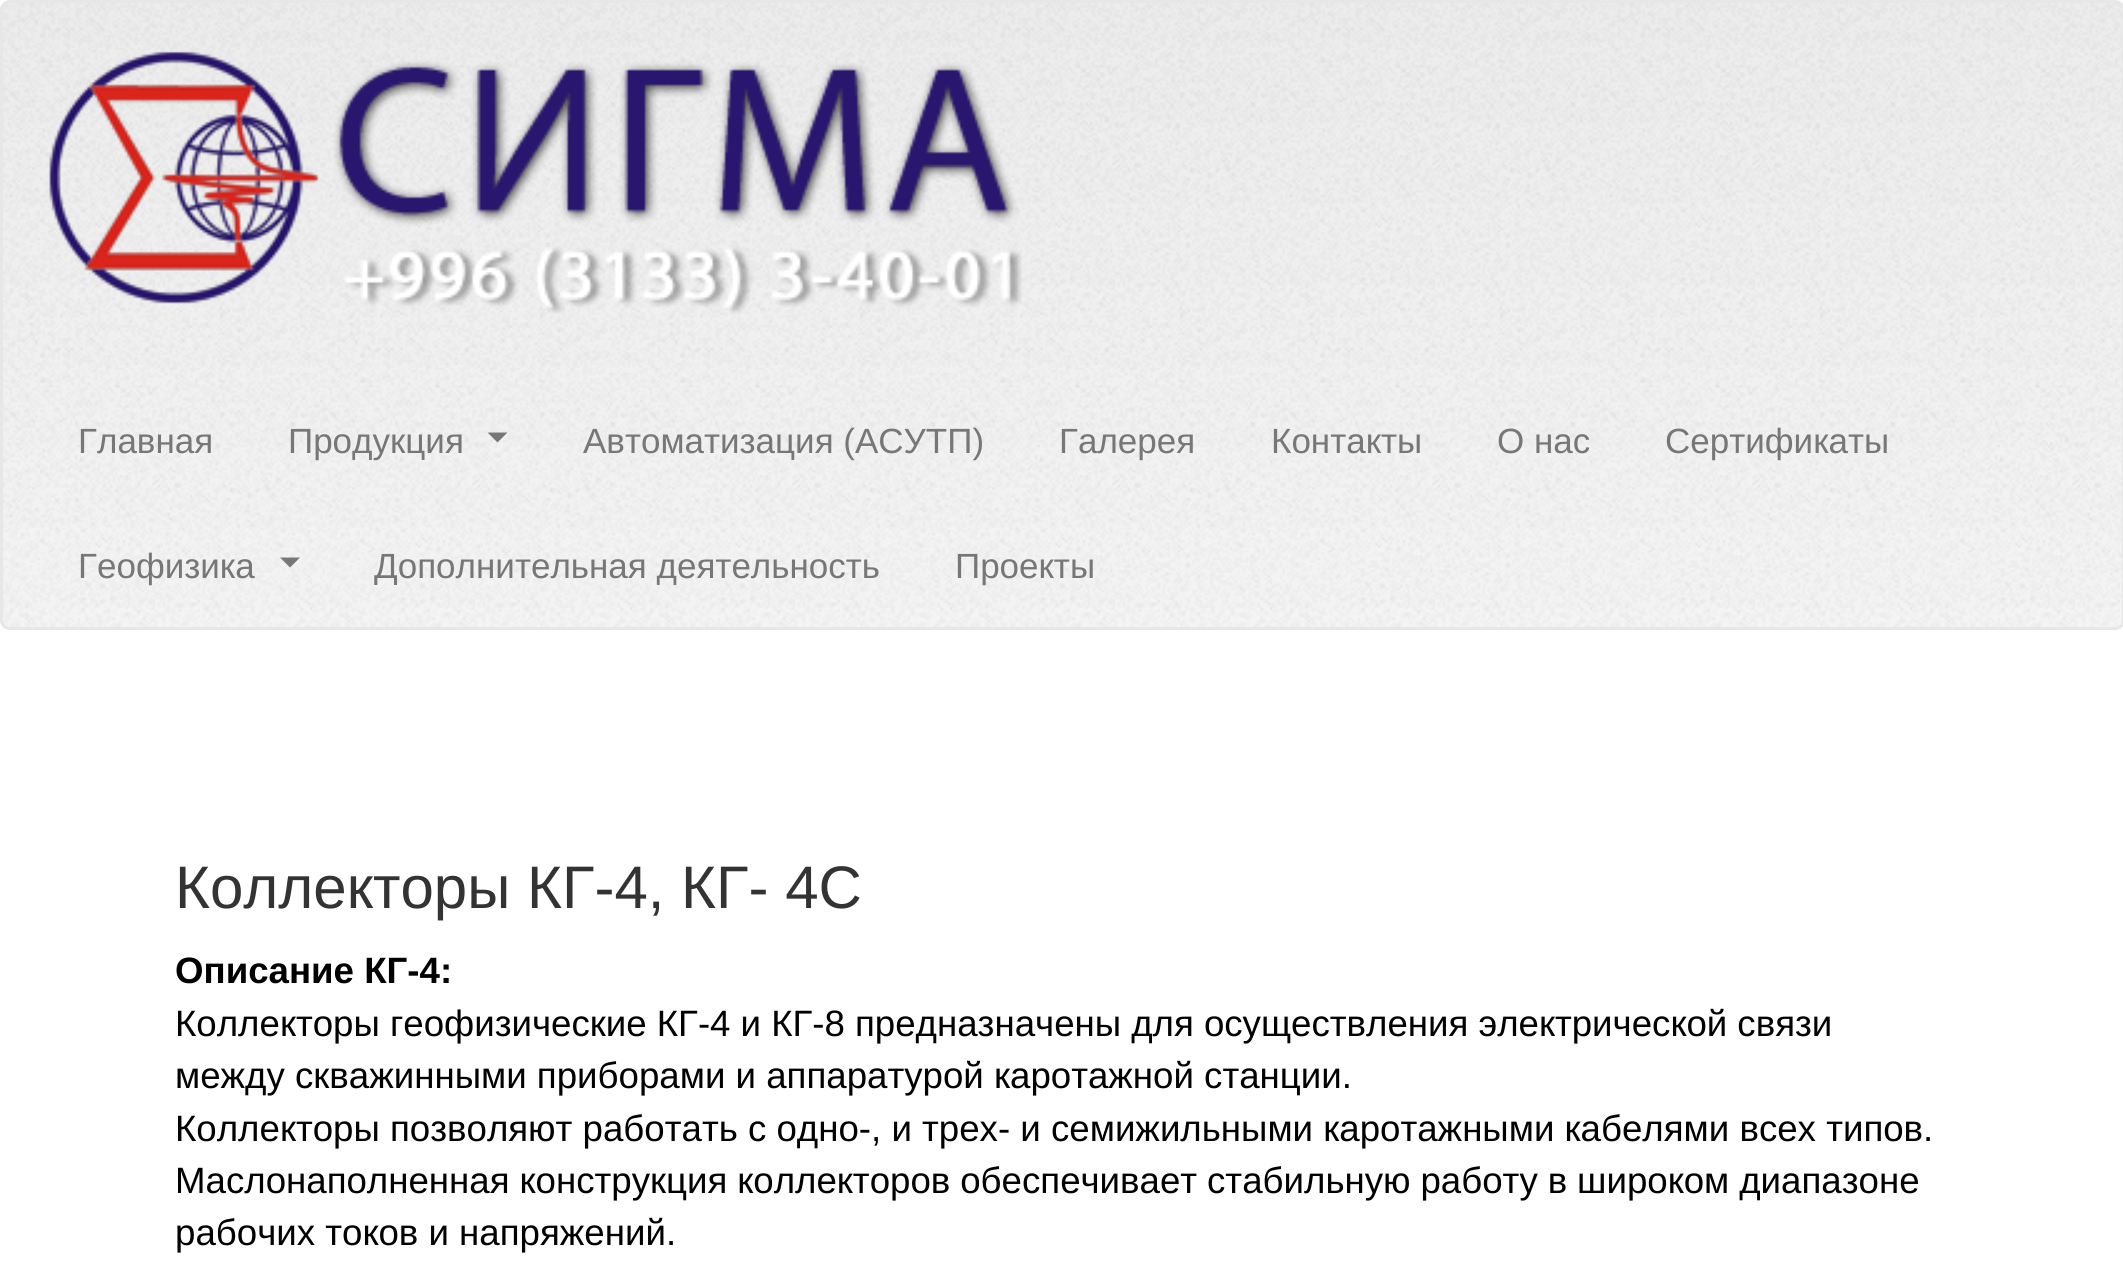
import math
import cairo

surface = cairo.ImageSurface(cairo.FORMAT_RGB24, 2123, 1261)
ctx = cairo.Context(surface)
options = cairo.FontOptions()
options.set_hint_metrics(cairo.HINT_METRICS_OFF)
options.set_hint_style(cairo.HINT_STYLE_NONE)
ctx.set_font_options(options)
ctx.set_miter_limit(4)


def spaced_text(x, y, s, letter, word):
    ctx.move_to(x, y)
    for ch in s:
        ctx.show_text(ch)
        ctx.rel_move_to(letter + word * (ch == ' '), 0)


def round_rect(x, y, w, h, r):
    ctx.new_sub_path()
    for i, (u, v) in enumerate([(x + w - r, y + h - r), (x + r, y + h - r), (x + r, y + r), (x + w - r, y + r)]):
        ctx.arc(u, v, r, i * math.pi / 2, (i + 1) * math.pi / 2)
    ctx.close_path()


def picture(path, x, y, w, h):
    ctx.save()
    ctx.set_source_surface(cairo.ImageSurface.create_from_png(path), x, y)
    ctx.rectangle(x, y, w, h)
    ctx.fill()
    ctx.restore()


ctx.set_source_rgb(1, 1, 1)
ctx.paint()
ctx.set_source_rgb(0.973, 0.973, 0.973)
round_rect(0, 0, 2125, 630, 10)
ctx.fill()
picture("img1.png", 0, 3, 2123, 627)
round_rect(1.5, 1.5, 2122, 627, 8.5)
ctx.set_source_rgb(0.906, 0.906, 0.906)
ctx.set_line_width(3)
ctx.stroke()
picture("img2.png", 49, 51, 973, 263)
ctx.select_font_face("Liberation Sans")
ctx.set_font_size(35)
ctx.set_source_rgb(0.467, 0.467, 0.467)
ctx.move_to(78, 453)
ctx.show_text("Главная")
ctx.move_to(288, 453)
ctx.show_text("Продукция")
ctx.new_path()
ctx.move_to(487.5, 432.5)
ctx.line_to(507.5, 432.5)
ctx.line_to(497.5, 442.5)
ctx.close_path()
ctx.fill()
ctx.move_to(583, 453)
ctx.show_text("Автоматизация (АСУТП)")
ctx.move_to(1059, 453)
ctx.show_text("Галерея")
ctx.move_to(1271, 453)
ctx.show_text("Контакты")
ctx.move_to(1497, 453)
ctx.show_text("О нас")
ctx.move_to(1665, 453)
ctx.show_text("Сертификаты")
ctx.move_to(78, 578)
ctx.show_text("Геофизика")
ctx.new_path()
ctx.move_to(280, 557.5)
ctx.line_to(300, 557.5)
ctx.line_to(290, 567.5)
ctx.close_path()
ctx.fill()
ctx.move_to(374, 578)
ctx.show_text("Дополнительная деятельность")
ctx.move_to(955, 578)
ctx.show_text("Проекты")
ctx.set_font_size(60)
ctx.set_source_rgb(0.2, 0.2, 0.2)
ctx.move_to(175, 908)
ctx.show_text("Коллекторы КГ-4, КГ- 4С")
ctx.select_font_face("Liberation Sans", cairo.FONT_SLANT_NORMAL, cairo.FONT_WEIGHT_BOLD)
ctx.set_font_size(36.65)
ctx.set_source_rgb(0, 0, 0)
ctx.move_to(175, 983)
ctx.show_text("Описание КГ-4:")
ctx.select_font_face("Liberation Sans")
spaced_text(175, 1036, "Коллекторы геофизические КГ-4 и КГ-8 предназначены для осуществления электрической связи", 0, -0.1)
ctx.move_to(175, 1088)
ctx.show_text("между скважинными приборами и аппаратурой каротажной станции.")
ctx.move_to(175, 1141)
ctx.show_text("Коллекторы позволяют работать с одно-, и трех- и семижильными каротажными кабелями всех типов.")
spaced_text(175, 1193, "Маслонаполненная конструкция коллекторов обеспечивает стабильную работу в широком диапазоне", 0, -0.25)
ctx.move_to(175, 1245)
ctx.show_text("рабочих токов и напряжений.")
surface.write_to_png("page.png")
